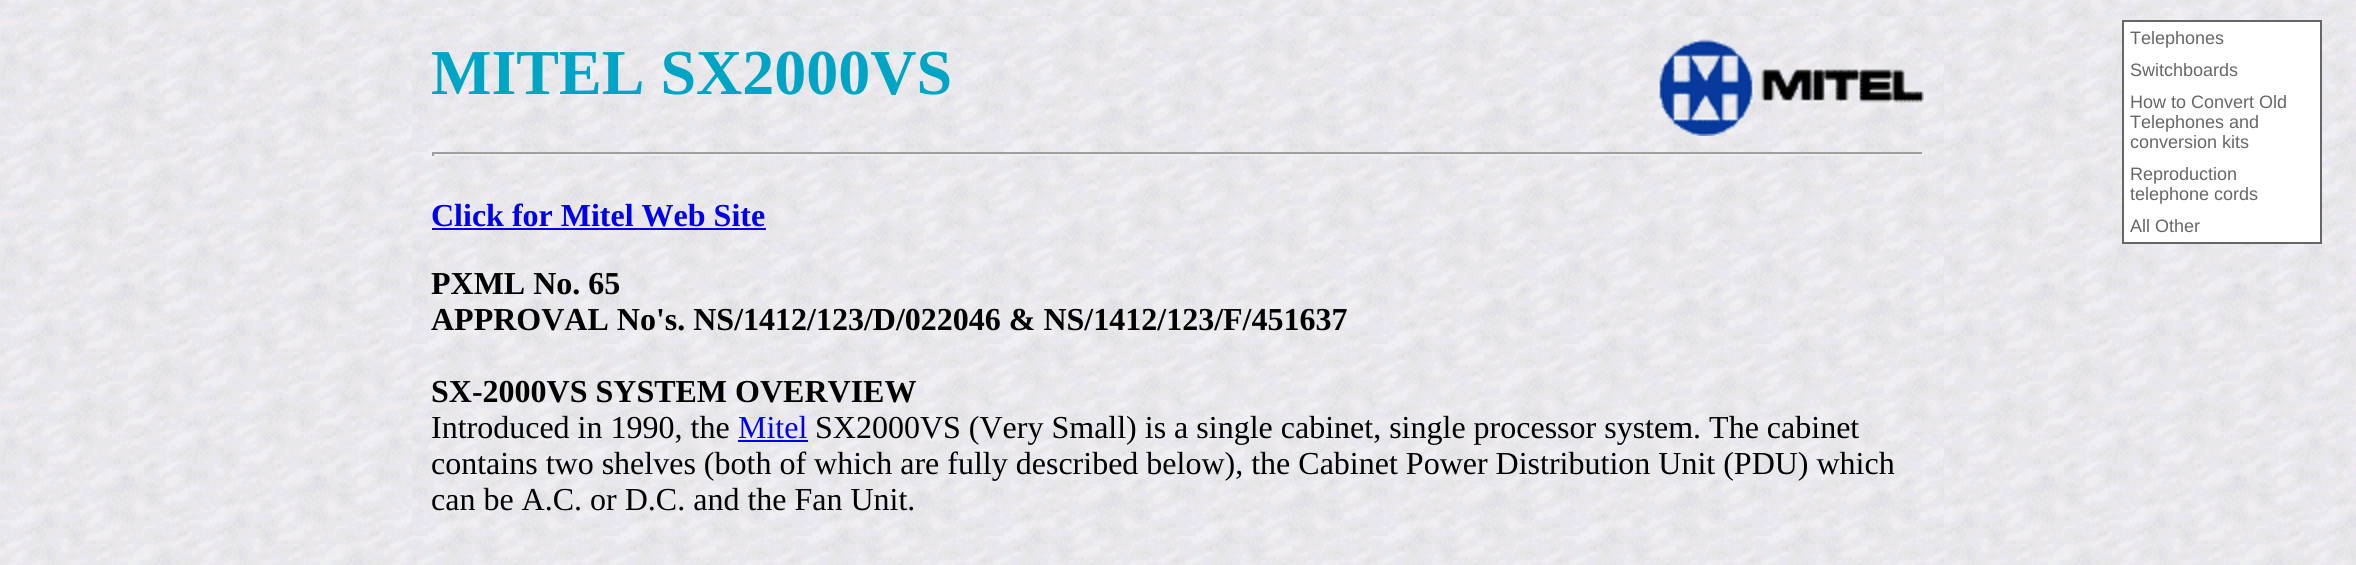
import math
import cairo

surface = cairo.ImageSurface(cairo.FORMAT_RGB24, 2356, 565)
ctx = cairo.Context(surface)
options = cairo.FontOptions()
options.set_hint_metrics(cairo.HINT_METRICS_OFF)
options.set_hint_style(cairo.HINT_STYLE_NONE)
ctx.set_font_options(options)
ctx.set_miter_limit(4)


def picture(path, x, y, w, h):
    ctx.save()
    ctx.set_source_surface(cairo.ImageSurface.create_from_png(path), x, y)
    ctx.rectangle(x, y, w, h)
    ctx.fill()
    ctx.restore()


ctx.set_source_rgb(1, 1, 1)
ctx.paint()
picture("img1.png", 0, 0, 2356, 565)
picture("img2.png", 412, 16, 1532, 549)
ctx.select_font_face("Liberation Serif", cairo.FONT_SLANT_NORMAL, cairo.FONT_WEIGHT_BOLD)
ctx.set_font_size(64)
ctx.set_source_rgb(0, 0.647, 0.776)
ctx.move_to(431, 94)
ctx.show_text("MITEL SX2000VS")
picture("img3.png", 1658, 39, 266, 97)
ctx.set_source_rgb(0.624, 0.624, 0.624)
ctx.rectangle(432, 152, 1492, 2)
ctx.fill()
ctx.set_source_rgb(0.933, 0.933, 0.933)
ctx.rectangle(1922, 152, 2, 4)
ctx.fill()
ctx.rectangle(432, 154, 1492, 2)
ctx.fill()
ctx.set_source_rgb(0.624, 0.624, 0.624)
ctx.rectangle(432, 152, 2, 4)
ctx.fill()
ctx.set_source_rgb(1, 1, 1)
ctx.rectangle(2123, 21, 198, 222)
ctx.fill_preserve()
ctx.set_source_rgb(0.4, 0.4, 0.4)
ctx.stroke()
ctx.select_font_face("Liberation Sans")
ctx.set_font_size(18)
ctx.move_to(2130, 44)
ctx.show_text("Telephones")
ctx.move_to(2130, 76)
ctx.show_text("Switchboards")
ctx.move_to(2130, 108)
ctx.show_text("How to Convert Old")
ctx.move_to(2130, 128)
ctx.show_text("Telephones and")
ctx.move_to(2130, 148)
ctx.show_text("conversion kits")
ctx.move_to(2130, 180)
ctx.show_text("Reproduction")
ctx.move_to(2130, 200)
ctx.show_text("telephone cords")
ctx.move_to(2130, 232)
ctx.show_text("All Other")
ctx.select_font_face("Liberation Serif", cairo.FONT_SLANT_NORMAL, cairo.FONT_WEIGHT_BOLD)
ctx.set_font_size(32)
ctx.set_source_rgb(0, 0, 0.933)
ctx.move_to(431, 226)
ctx.show_text("Click for Mitel Web Site")
ctx.rectangle(432, 228, 334, 2)
ctx.fill()
ctx.set_source_rgb(0, 0, 0)
ctx.move_to(431, 294)
ctx.show_text("PXML No. 65")
ctx.move_to(431, 330)
ctx.show_text("APPROVAL No's. NS/1412/123/D/022046 & NS/1412/123/F/451637")
ctx.move_to(431, 402)
ctx.show_text("SX-2000VS SYSTEM OVERVIEW")
ctx.select_font_face("Liberation Serif")
ctx.move_to(431, 438)
ctx.show_text("Introduced in 1990, the")
ctx.set_source_rgb(0, 0, 0.933)
ctx.move_to(738, 438)
ctx.show_text("Mitel")
ctx.rectangle(738, 440, 70, 2)
ctx.fill()
ctx.set_source_rgb(0, 0, 0)
ctx.move_to(815, 438)
ctx.show_text("SX2000VS (Very Small) is a single cabinet, single processor system. The cabinet")
ctx.move_to(431, 474)
ctx.show_text("contains two shelves (both of which are fully described below), the Cabinet Power Distribution Unit (PDU) which")
ctx.move_to(431, 510)
ctx.show_text("can be A.C. or D.C. and the Fan Unit.")
surface.write_to_png("page.png")
